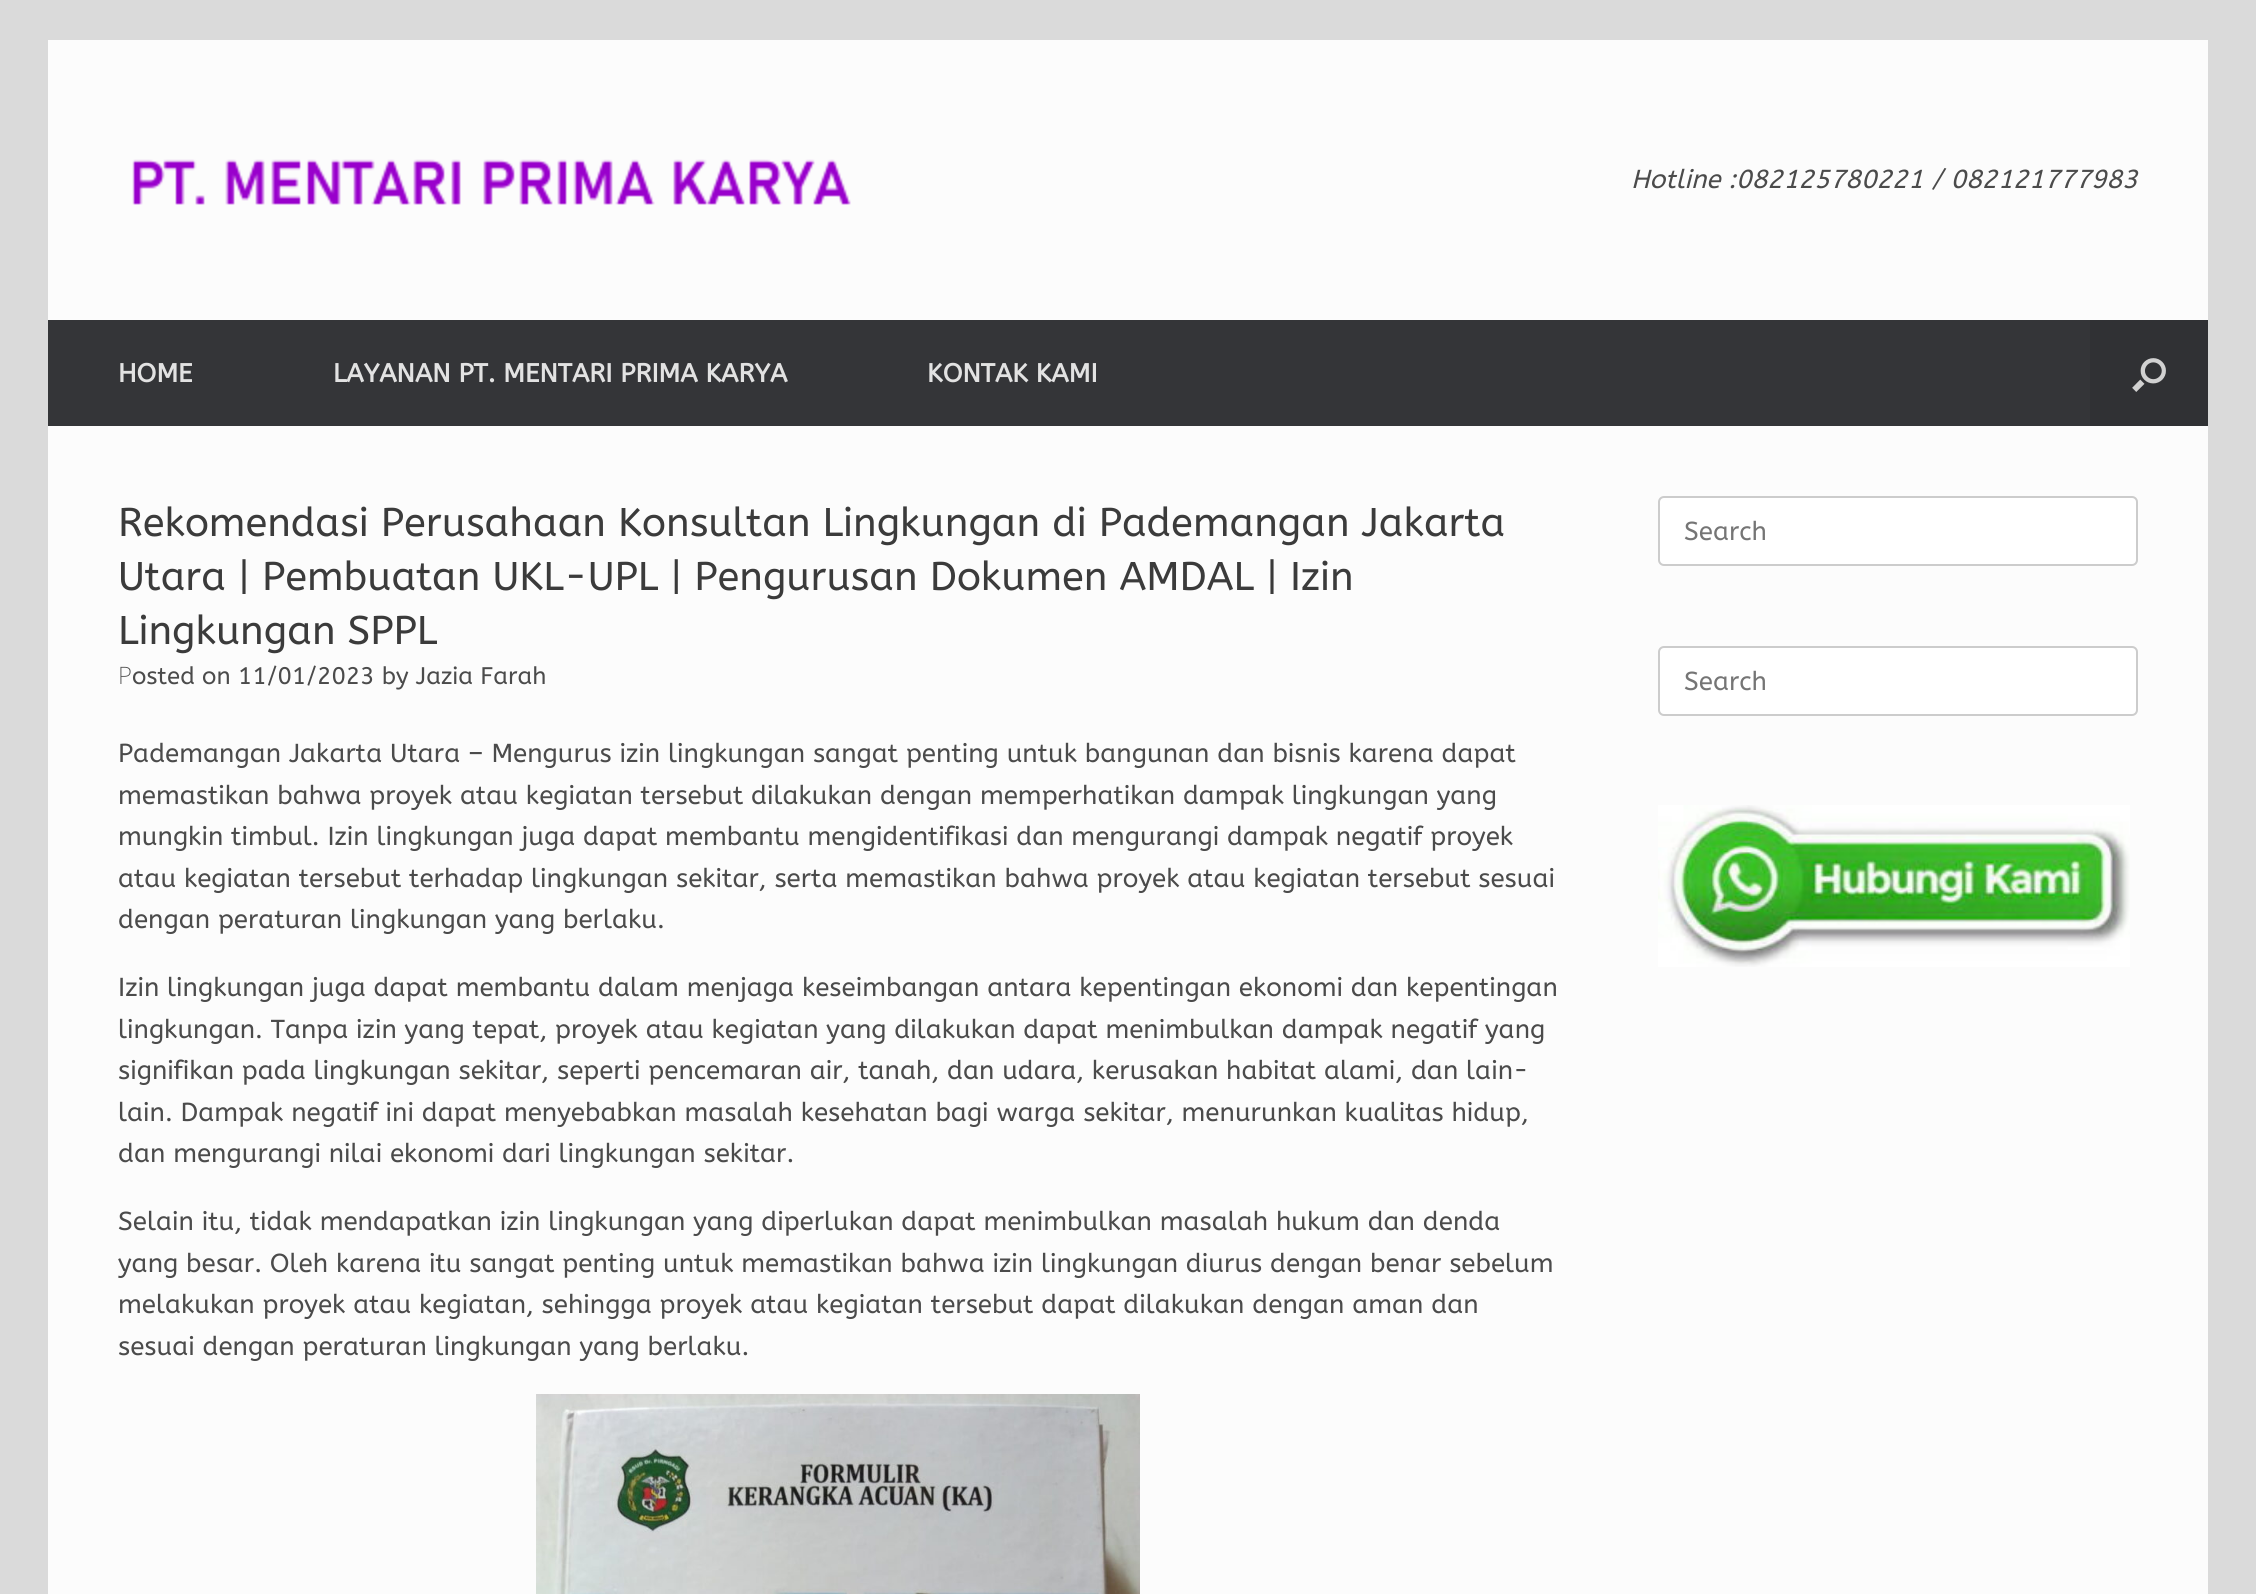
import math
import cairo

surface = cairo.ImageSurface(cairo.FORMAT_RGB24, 2256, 1594)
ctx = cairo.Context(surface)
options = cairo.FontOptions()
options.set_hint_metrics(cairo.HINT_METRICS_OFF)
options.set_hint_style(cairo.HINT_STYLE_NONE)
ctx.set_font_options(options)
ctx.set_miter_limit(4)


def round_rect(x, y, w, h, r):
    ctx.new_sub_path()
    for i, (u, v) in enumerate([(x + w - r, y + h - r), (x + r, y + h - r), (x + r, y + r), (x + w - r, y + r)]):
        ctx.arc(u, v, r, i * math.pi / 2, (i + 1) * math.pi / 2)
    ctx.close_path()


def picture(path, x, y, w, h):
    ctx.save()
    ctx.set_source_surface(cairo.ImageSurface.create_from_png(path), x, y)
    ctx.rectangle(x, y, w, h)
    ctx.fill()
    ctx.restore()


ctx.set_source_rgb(0.855, 0.855, 0.855)
ctx.paint()
ctx.set_source_rgb(0.988, 0.988, 0.988)
ctx.rectangle(48, 40, 2160, 280)
ctx.fill()
picture("img1.png", 132, 159, 719, 46)
ctx.select_font_face("ABeeZee", cairo.FONT_SLANT_ITALIC)
ctx.set_font_size(26)
ctx.set_source_rgb(0.294, 0.294, 0.294)
ctx.move_to(1631, 188)
ctx.show_text("Hotline :082125780221 / 082121777983")
ctx.set_source_rgb(0.204, 0.208, 0.22)
ctx.rectangle(48, 320, 2042, 106)
ctx.fill()
ctx.select_font_face("ABeeZee", cairo.FONT_SLANT_NORMAL, cairo.FONT_WEIGHT_BOLD)
ctx.set_source_rgb(0.886, 0.886, 0.886)
ctx.move_to(118, 382)
ctx.show_text("HOME")
ctx.move_to(333, 382)
ctx.show_text("LAYANAN PT. MENTARI PRIMA KARYA")
ctx.move_to(927, 382)
ctx.show_text("KONTAK KAMI")
ctx.set_source_rgb(0.188, 0.192, 0.204)
ctx.rectangle(2090, 320, 118, 106)
ctx.fill()
picture("img2.png", 2132, 358, 34, 34)
ctx.set_source_rgb(0.988, 0.988, 0.988)
ctx.rectangle(48, 426, 2160, 1168)
ctx.fill()
ctx.select_font_face("ABeeZee")
ctx.set_font_size(40)
ctx.set_source_rgb(0.231, 0.231, 0.231)
ctx.move_to(118, 536)
ctx.show_text("Rekomendasi Perusahaan Konsultan Lingkungan di Pademangan Jakarta")
ctx.move_to(118, 590)
ctx.show_text("Utara | Pembuatan UKL-UPL | Pengurusan Dokumen AMDAL | Izin")
ctx.move_to(118, 644)
ctx.show_text("Lingkungan SPPL")
ctx.select_font_face("Noto Sans ExtraLight")
ctx.set_font_size(24)
ctx.set_source_rgb(0.294, 0.294, 0.294)
ctx.move_to(118, 684)
ctx.show_text("P")
ctx.select_font_face("ABeeZee")
ctx.move_to(132, 684)
ctx.show_text("osted on 11/01/2023 by Jazia Farah")
ctx.set_font_size(26)
ctx.move_to(118, 762)
ctx.show_text("Pademangan Jakarta Utara – Mengurus izin lingkungan sangat penting untuk bangunan dan bisnis karena dapat")
ctx.move_to(118, 804)
ctx.show_text("memastikan bahwa proyek atau kegiatan tersebut dilakukan dengan memperhatikan dampak lingkungan yang")
ctx.move_to(118, 845)
ctx.show_text("mungkin timbul. Izin lingkungan juga dapat membantu mengidentifikasi dan mengurangi dampak negatif proyek")
ctx.move_to(118, 887)
ctx.show_text("atau kegiatan tersebut terhadap lingkungan sekitar, serta memastikan bahwa proyek atau kegiatan tersebut sesuai")
ctx.move_to(118, 928)
ctx.show_text("dengan peraturan lingkungan yang berlaku.")
ctx.move_to(118, 996)
ctx.show_text("Izin lingkungan juga dapat membantu dalam menjaga keseimbangan antara kepentingan ekonomi dan kepentingan")
ctx.move_to(118, 1038)
ctx.show_text("lingkungan. Tanpa izin yang tepat, proyek atau kegiatan yang dilakukan dapat menimbulkan dampak negatif yang")
ctx.move_to(118, 1079)
ctx.show_text("signifikan pada lingkungan sekitar, seperti pencemaran air, tanah, dan udara, kerusakan habitat alami, dan lain-")
ctx.move_to(118, 1121)
ctx.show_text("lain. Dampak negatif ini dapat menyebabkan masalah kesehatan bagi warga sekitar, menurunkan kualitas hidup,")
ctx.move_to(118, 1162)
ctx.show_text("dan mengurangi nilai ekonomi dari lingkungan sekitar.")
ctx.move_to(118, 1230)
ctx.show_text("Selain itu, tidak mendapatkan izin lingkungan yang diperlukan dapat menimbulkan masalah hukum dan denda")
ctx.move_to(118, 1272)
ctx.show_text("yang besar. Oleh karena itu sangat penting untuk memastikan bahwa izin lingkungan diurus dengan benar sebelum")
ctx.move_to(118, 1313)
ctx.show_text("melakukan proyek atau kegiatan, sehingga proyek atau kegiatan tersebut dapat dilakukan dengan aman dan")
ctx.move_to(118, 1355)
ctx.show_text("sesuai dengan peraturan lingkungan yang berlaku.")
picture("img3.png", 536, 1394, 604, 200)
ctx.set_source_rgb(1, 1, 1)
round_rect(1659, 497, 478, 68, 5)
ctx.fill_preserve()
ctx.set_source_rgb(0.8, 0.8, 0.8)
ctx.stroke()
ctx.set_source_rgb(0.459, 0.459, 0.459)
ctx.move_to(1684, 540)
ctx.show_text("Search")
ctx.set_source_rgb(1, 1, 1)
round_rect(1659, 647, 478, 68, 5)
ctx.fill_preserve()
ctx.set_source_rgb(0.8, 0.8, 0.8)
ctx.stroke()
ctx.set_source_rgb(0.459, 0.459, 0.459)
ctx.move_to(1684, 690)
ctx.show_text("Search")
picture("img4.png", 1658, 805, 472, 162)
surface.write_to_png("page.png")
